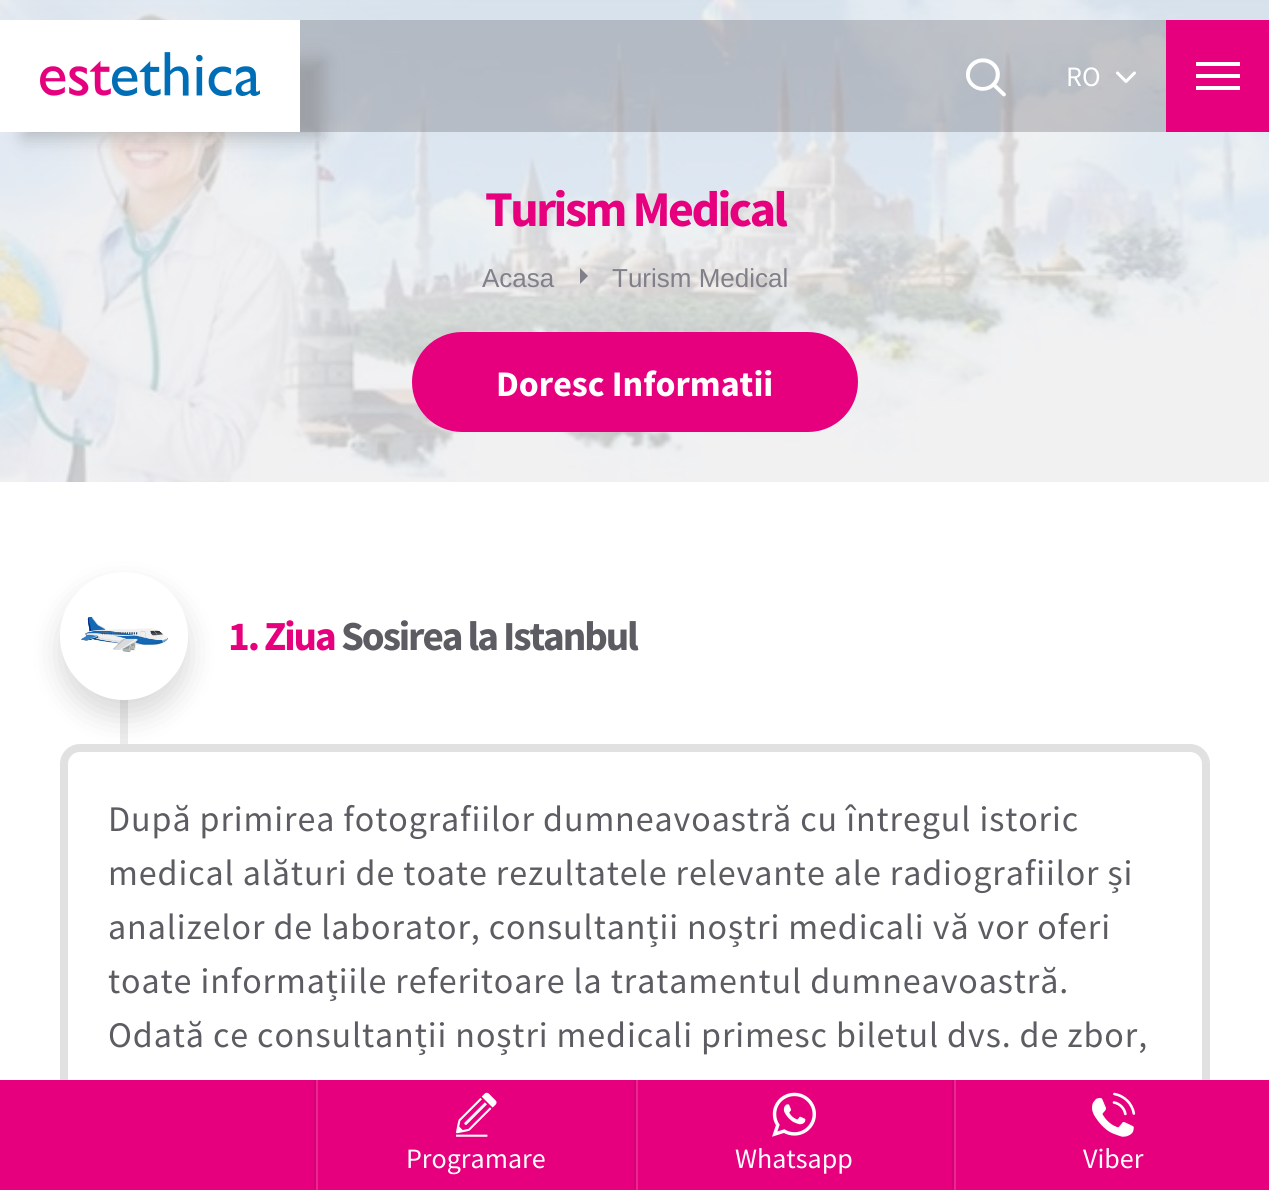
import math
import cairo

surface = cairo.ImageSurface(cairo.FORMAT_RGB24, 1269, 1190)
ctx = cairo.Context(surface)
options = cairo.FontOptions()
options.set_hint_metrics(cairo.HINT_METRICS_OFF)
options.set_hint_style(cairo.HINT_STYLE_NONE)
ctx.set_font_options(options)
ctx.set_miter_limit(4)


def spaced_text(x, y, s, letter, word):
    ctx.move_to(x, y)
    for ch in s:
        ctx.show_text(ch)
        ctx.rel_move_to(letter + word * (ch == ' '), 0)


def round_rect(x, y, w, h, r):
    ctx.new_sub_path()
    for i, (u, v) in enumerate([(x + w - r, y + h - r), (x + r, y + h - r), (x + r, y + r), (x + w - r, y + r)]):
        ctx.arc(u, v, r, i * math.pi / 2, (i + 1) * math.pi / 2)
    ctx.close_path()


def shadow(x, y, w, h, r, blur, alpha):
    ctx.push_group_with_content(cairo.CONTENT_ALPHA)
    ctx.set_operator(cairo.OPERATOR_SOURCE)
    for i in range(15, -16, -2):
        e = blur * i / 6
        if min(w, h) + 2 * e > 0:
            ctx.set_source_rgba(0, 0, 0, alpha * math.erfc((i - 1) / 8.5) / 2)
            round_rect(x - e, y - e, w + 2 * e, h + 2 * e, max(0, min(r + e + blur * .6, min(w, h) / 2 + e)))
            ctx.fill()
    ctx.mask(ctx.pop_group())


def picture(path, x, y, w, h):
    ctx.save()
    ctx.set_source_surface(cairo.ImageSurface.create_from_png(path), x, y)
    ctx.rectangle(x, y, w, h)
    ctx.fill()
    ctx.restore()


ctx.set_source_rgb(1, 1, 1)
ctx.paint()
picture("img4.png", 0, 0, 1269, 482)
ctx.set_source_rgba(0.365, 0.361, 0.388, 0.3)
ctx.rectangle(300, 20, 866, 112)
ctx.fill()
ctx.set_source_rgb(0.467, 0.467, 0.467)
shadow(24, 60, 300, 78, 0, 9, 0.4)
ctx.set_source_rgb(1, 1, 1)
ctx.rectangle(0, 20, 300, 112)
ctx.fill()
picture("img1.png", 40, 52, 220, 44)
picture("img2.png", 966, 58, 40, 39)
ctx.select_font_face("Source Sans Pro")
ctx.set_font_size(28)
ctx.move_to(1066, 86)
ctx.show_text("RO")
picture("img3.png", 1116, 71, 20, 12)
ctx.set_source_rgb(0.902, 0, 0.494)
ctx.rectangle(1166, 20, 103, 112)
ctx.fill()
ctx.set_source_rgb(1, 1, 1)
ctx.rectangle(1196, 74, 44, 4)
ctx.fill()
ctx.rectangle(1196, 62, 44, 4)
ctx.fill()
ctx.rectangle(1196, 86, 44, 4)
ctx.fill()
ctx.select_font_face("Source Sans Pro", cairo.FONT_SLANT_NORMAL, cairo.FONT_WEIGHT_BOLD)
ctx.set_font_size(50)
ctx.set_source_rgb(0.902, 0, 0.494)
spaced_text(485, 226, "Turism Medical", -2.5, 0)
ctx.select_font_face("Liberation Sans")
ctx.set_font_size(26)
ctx.set_source_rgb(0.506, 0.502, 0.541)
ctx.move_to(482, 287)
ctx.show_text("Acasa")
ctx.new_path()
ctx.move_to(580, 284)
ctx.line_to(580, 268)
ctx.line_to(588, 276)
ctx.close_path()
ctx.fill()
ctx.move_to(612, 287)
ctx.show_text("Turism Medical")
ctx.set_source_rgb(0.902, 0, 0.494)
round_rect(414, 334, 442, 96, 48)
ctx.fill_preserve()
ctx.set_line_width(4)
ctx.stroke()
ctx.select_font_face("Source Sans Pro", cairo.FONT_SLANT_NORMAL, cairo.FONT_WEIGHT_BOLD)
ctx.set_font_size(36)
ctx.set_source_rgb(1, 1, 1)
ctx.move_to(496, 396)
ctx.show_text("Doresc Informatii")
ctx.set_source_rgb(0.925, 0.925, 0.929)
ctx.rectangle(120, 572, 8, 172)
ctx.fill()
round_rect(64, 748, 1142, 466, 16)
ctx.set_source_rgb(0.882, 0.882, 0.882)
ctx.set_line_width(8)
ctx.stroke()
ctx.set_source_rgb(0, 0, 0)
shadow(60, 588, 128, 128, 64, 15, 0.15)
ctx.set_source_rgb(1, 1, 1)
ctx.arc(124, 636, 64, 0, 2 * math.pi)
ctx.fill()
picture("img5.png", 81, 617, 87, 35)
ctx.set_font_size(41.25)
ctx.set_source_rgb(0.902, 0, 0.494)
spaced_text(228, 650, "1. Ziua", -2.1, 0)
ctx.set_source_rgb(0.365, 0.361, 0.388)
spaced_text(341, 650, "Sosirea la Istanbul", -2.1, 0)
ctx.select_font_face("Source Sans Pro")
ctx.set_font_size(36)
spaced_text(108, 831, "După primirea fotografiilor dumneavoastră cu întregul istoric", 0.9, 0)
spaced_text(108, 885, "medical alături de toate rezultatele relevante ale radiografiilor și", 0.9, 0)
spaced_text(108, 939, "analizelor de laborator, consultanții noștri medicali vă vor oferi", 0.9, 0)
spaced_text(108, 993, "toate informațiile referitoare la tratamentul dumneavoastră.", 0.9, 0)
spaced_text(108, 1047, "Odată ce consultanții noștri medicali primesc biletul dvs. de zbor,", 0.9, 0)
ctx.set_source_rgb(0.902, 0, 0.494)
ctx.rectangle(0, 1080, 1269, 110)
ctx.fill()
ctx.set_source_rgb(0.839, 0, 0.459)
ctx.rectangle(314, 1080, 2, 110)
ctx.fill()
ctx.rectangle(634, 1080, 2, 110)
ctx.fill()
ctx.set_source_rgb(0.918, 0.149, 0.569)
ctx.rectangle(316, 1080, 2, 110)
ctx.fill()
picture("img6.png", 456, 1092, 41, 45)
ctx.set_font_size(28)
ctx.set_source_rgb(1, 1, 1)
ctx.move_to(406, 1168)
ctx.show_text("Programare")
ctx.set_source_rgb(0.839, 0, 0.459)
ctx.rectangle(952, 1080, 2, 110)
ctx.fill()
ctx.set_source_rgb(0.918, 0.149, 0.569)
ctx.rectangle(636, 1080, 2, 110)
ctx.fill()
picture("img7.png", 772, 1092, 44, 45)
ctx.set_source_rgb(1, 1, 1)
ctx.move_to(735, 1168)
ctx.show_text("Whatsapp")
ctx.set_source_rgb(0.918, 0.149, 0.569)
ctx.rectangle(954, 1080, 2, 110)
ctx.fill()
picture("img8.png", 1092, 1092, 44, 45)
ctx.set_source_rgb(1, 1, 1)
ctx.move_to(1083, 1168)
ctx.show_text("Viber")
surface.write_to_png("page.png")
